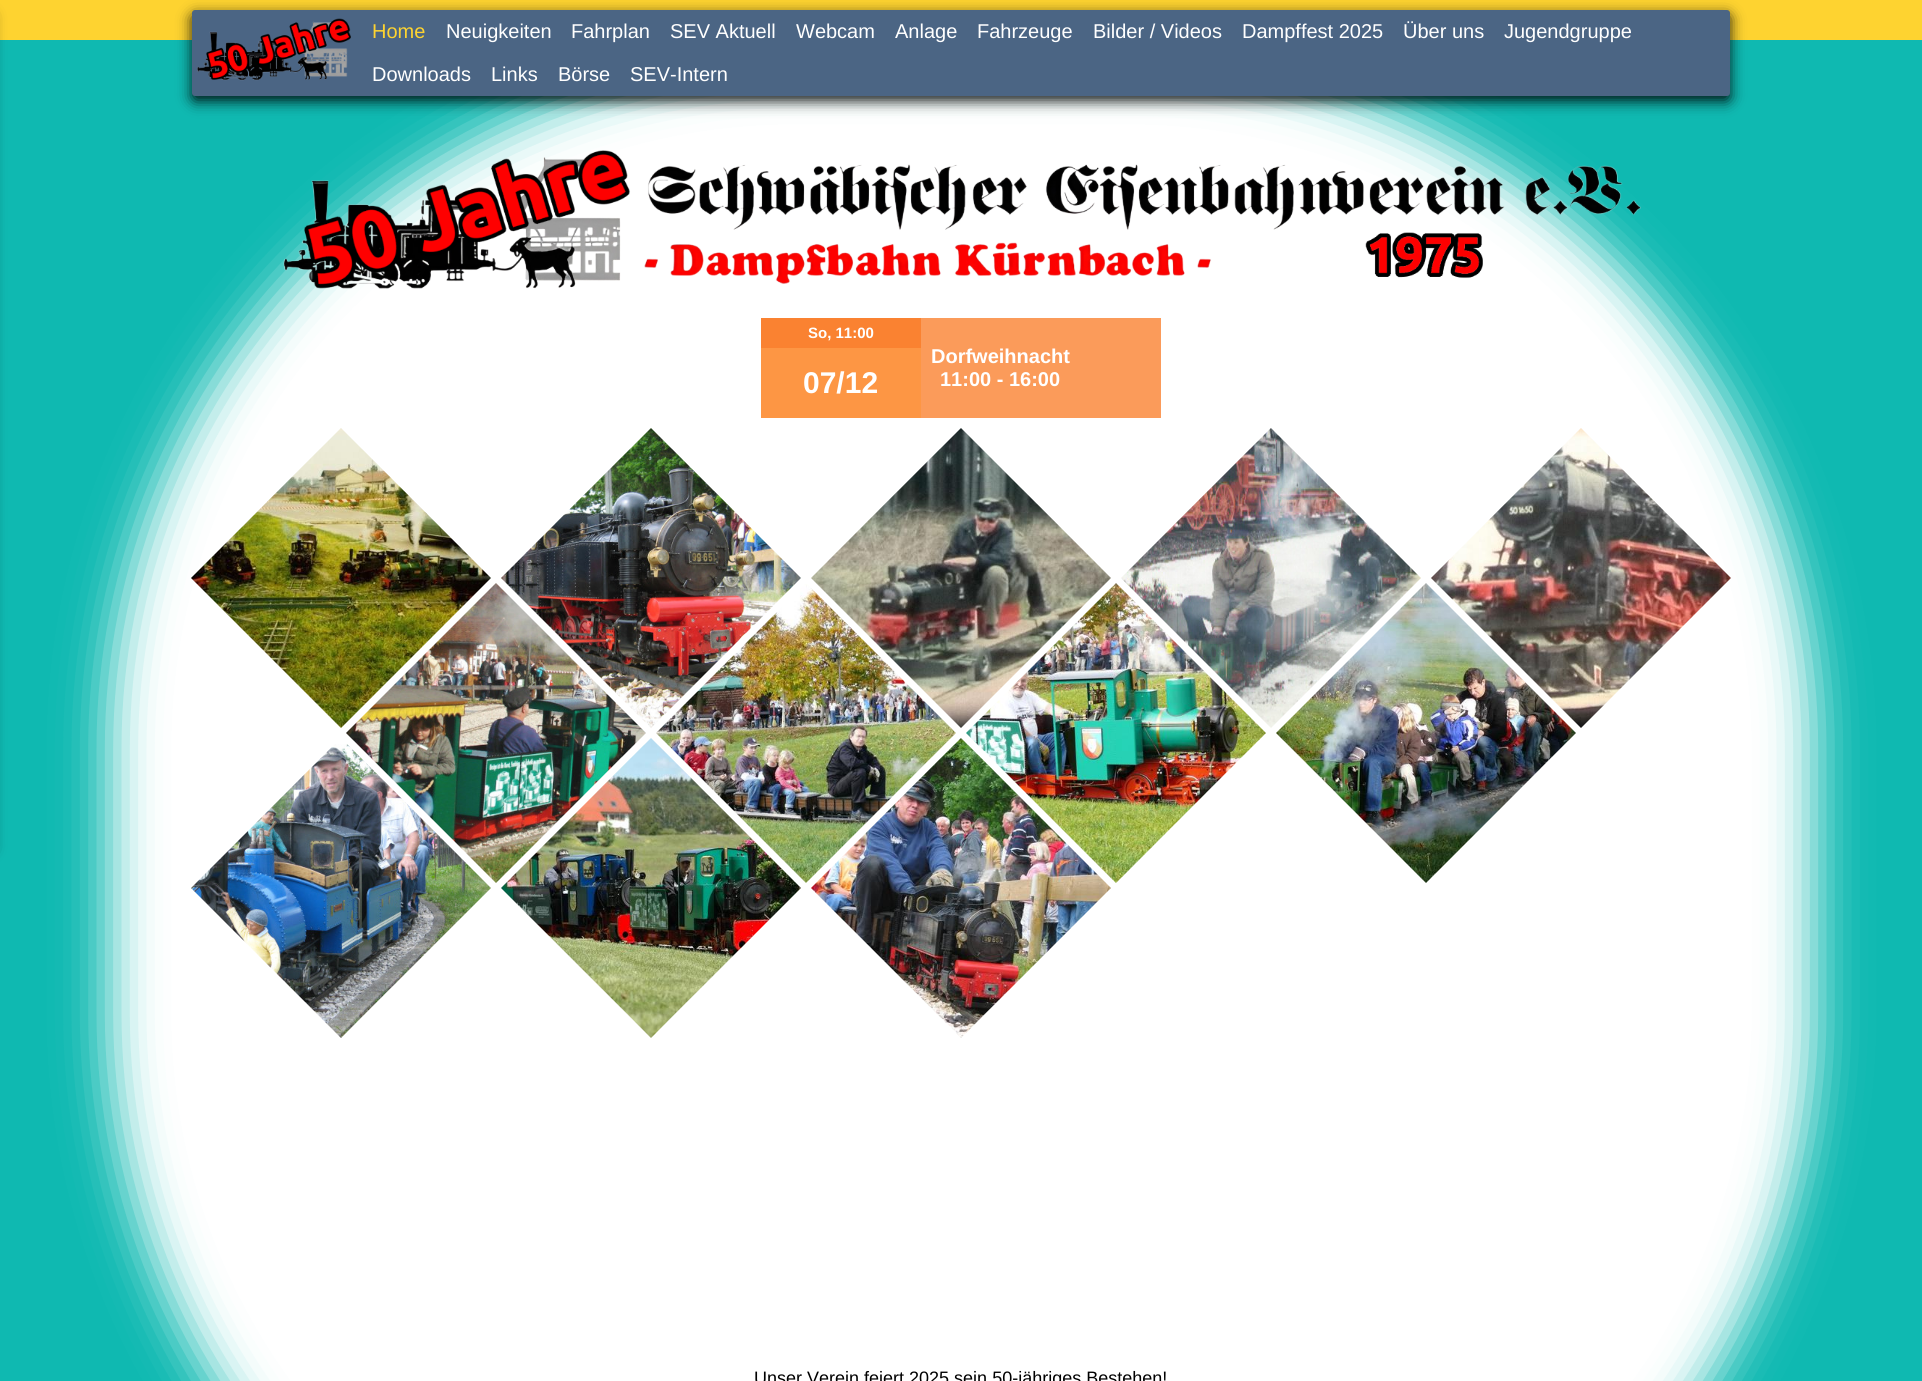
import math
import cairo

surface = cairo.ImageSurface(cairo.FORMAT_RGB24, 1922, 1381)
ctx = cairo.Context(surface)
options = cairo.FontOptions()
options.set_hint_metrics(cairo.HINT_METRICS_OFF)
options.set_hint_style(cairo.HINT_STYLE_NONE)
ctx.set_font_options(options)
ctx.set_miter_limit(4)


def round_rect(x, y, w, h, r):
    ctx.new_sub_path()
    for i, (u, v) in enumerate([(x + w - r, y + h - r), (x + r, y + h - r), (x + r, y + r), (x + w - r, y + r)]):
        ctx.arc(u, v, r, i * math.pi / 2, (i + 1) * math.pi / 2)
    ctx.close_path()


def shadow(x, y, w, h, r, blur, alpha):
    ctx.push_group_with_content(cairo.CONTENT_ALPHA)
    ctx.set_operator(cairo.OPERATOR_SOURCE)
    for i in range(15, -16, -2):
        e = blur * i / 6
        if min(w, h) + 2 * e > 0:
            ctx.set_source_rgba(0, 0, 0, alpha * math.erfc((i - 1) / 8.5) / 2)
            round_rect(x - e, y - e, w + 2 * e, h + 2 * e, max(0, min(r + e + blur * .6, min(w, h) / 2 + e)))
            ctx.fill()
    ctx.mask(ctx.pop_group())


def picture(path, x, y, w, h):
    ctx.save()
    ctx.set_source_surface(cairo.ImageSurface.create_from_png(path), x, y)
    ctx.rectangle(x, y, w, h)
    ctx.fill()
    ctx.restore()


ctx.set_source_rgb(0.059, 0.725, 0.694)
ctx.paint()
ctx.set_source_rgb(1, 1, 1)
shadow(109, 62, 1705, 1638, 671, 25, 1)
ctx.set_source_rgb(0.996, 0.827, 0.188)
ctx.rectangle(0, 0, 1922, 40)
ctx.fill()
ctx.set_source_rgb(0, 0, 0)
shadow(-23, 16, 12, 833, 0, 7.5, 1)
shadow(193, 16, 1536, 84, 2, 7.5, 1)
ctx.set_source_rgb(0.294, 0.396, 0.518)
round_rect(192, 10, 1538, 86, 3)
ctx.fill()
picture("img1.png", 197, 18, 154, 63)
ctx.select_font_face("Liberation Sans")
ctx.set_font_size(20)
ctx.set_source_rgb(0.996, 0.827, 0.188)
ctx.move_to(372, 38)
ctx.show_text("Home")
ctx.set_source_rgb(1, 1, 1)
ctx.move_to(446, 38)
ctx.show_text("Neuigkeiten")
ctx.move_to(571, 38)
ctx.show_text("Fahrplan")
ctx.move_to(670, 38)
ctx.show_text("SEV Aktuell")
ctx.move_to(796, 38)
ctx.show_text("Webcam")
ctx.move_to(895, 38)
ctx.show_text("Anlage")
ctx.move_to(977, 38)
ctx.show_text("Fahrzeuge")
ctx.move_to(1093, 38)
ctx.show_text("Bilder / Videos")
ctx.move_to(1242, 38)
ctx.show_text("Dampffest 2025")
ctx.move_to(1403, 38)
ctx.show_text("Über uns")
ctx.move_to(1504, 38)
ctx.show_text("Jugendgruppe")
ctx.move_to(372, 81)
ctx.show_text("Downloads")
ctx.move_to(491, 81)
ctx.show_text("Links")
ctx.move_to(558, 81)
ctx.show_text("Börse")
ctx.move_to(630, 81)
ctx.show_text("SEV-Intern")
picture("img2.png", 283, 150, 1358, 139)
ctx.set_source_rgb(0.98, 0.51, 0.192)
ctx.rectangle(761, 318, 160, 30)
ctx.fill()
ctx.select_font_face("Liberation Sans", cairo.FONT_SLANT_NORMAL, cairo.FONT_WEIGHT_BOLD)
ctx.set_font_size(15)
ctx.set_source_rgb(1, 1, 1)
ctx.move_to(808, 338)
ctx.show_text("So, 11:00")
ctx.set_source_rgb(0.992, 0.588, 0.267)
ctx.rectangle(761, 348, 160, 70)
ctx.fill()
ctx.set_font_size(30)
ctx.set_source_rgb(1, 1, 1)
ctx.move_to(803, 393)
ctx.show_text("07/12")
ctx.set_source_rgb(0.984, 0.608, 0.353)
ctx.rectangle(921, 318, 240, 100)
ctx.fill()
ctx.set_font_size(20)
ctx.set_source_rgb(1, 1, 1)
ctx.move_to(931, 363)
ctx.show_text("Dorfweihnacht")
ctx.move_to(940, 386)
ctx.show_text("11:00 - 16:00")
picture("img3.png", 191, 428, 300, 300)
picture("img5.png", 501, 428, 300, 300)
picture("img4.png", 346, 583, 300, 300)
picture("img7.png", 811, 428, 300, 300)
picture("img6.png", 656, 584, 300, 299)
picture("img9.png", 1121, 428, 300, 300)
picture("img8.png", 966, 583, 300, 300)
picture("img11.png", 1431, 428, 300, 300)
picture("img10.png", 1276, 583, 300, 300)
picture("img12.png", 191, 744, 300, 294)
picture("img13.png", 501, 738, 300, 300)
picture("img14.png", 811, 738, 300, 300)
ctx.select_font_face("Liberation Sans")
ctx.set_font_size(18)
ctx.set_source_rgb(0, 0, 0)
ctx.move_to(754, 1384)
ctx.show_text("Unser Verein feiert 2025 sein 50-jähriges Bestehen!")
surface.write_to_png("page.png")
